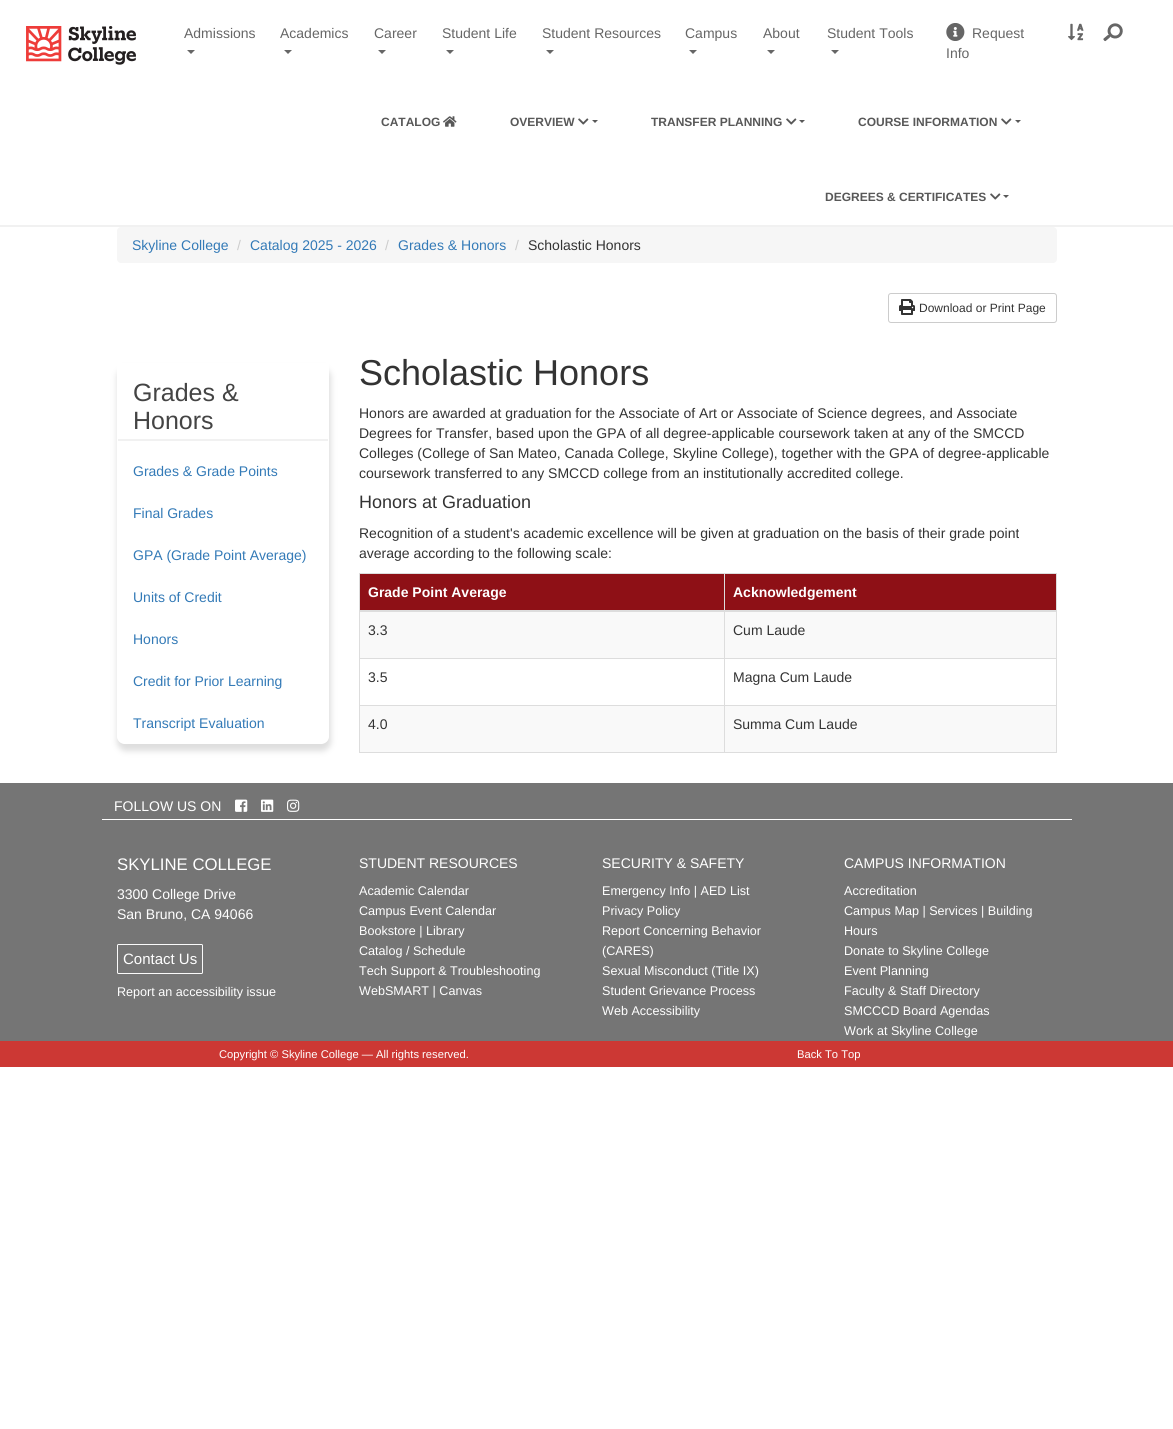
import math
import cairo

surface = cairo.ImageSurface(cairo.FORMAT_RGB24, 1173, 1429)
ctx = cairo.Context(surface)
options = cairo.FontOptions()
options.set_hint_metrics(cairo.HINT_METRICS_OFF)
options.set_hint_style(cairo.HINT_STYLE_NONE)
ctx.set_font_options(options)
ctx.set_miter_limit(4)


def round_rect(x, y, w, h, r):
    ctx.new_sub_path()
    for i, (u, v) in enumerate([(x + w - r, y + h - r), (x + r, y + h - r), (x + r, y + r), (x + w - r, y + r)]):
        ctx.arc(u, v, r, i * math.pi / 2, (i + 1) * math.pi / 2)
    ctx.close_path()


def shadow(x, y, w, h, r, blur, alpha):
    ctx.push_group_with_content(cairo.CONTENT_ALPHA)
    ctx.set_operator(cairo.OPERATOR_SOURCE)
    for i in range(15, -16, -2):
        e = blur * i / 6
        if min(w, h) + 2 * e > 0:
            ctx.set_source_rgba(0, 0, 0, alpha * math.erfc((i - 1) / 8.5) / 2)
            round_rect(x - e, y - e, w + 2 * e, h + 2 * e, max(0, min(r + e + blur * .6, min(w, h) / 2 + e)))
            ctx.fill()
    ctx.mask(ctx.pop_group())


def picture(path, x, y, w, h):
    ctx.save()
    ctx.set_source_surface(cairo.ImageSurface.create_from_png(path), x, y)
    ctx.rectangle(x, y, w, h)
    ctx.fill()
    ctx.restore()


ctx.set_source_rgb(1, 1, 1)
ctx.paint()
picture("img1.png", 26, 26, 110, 39)
ctx.select_font_face("Liberation Sans")
ctx.set_font_size(14)
ctx.set_source_rgb(0.4, 0.4, 0.4)
ctx.move_to(184, 38)
ctx.show_text("Admissions")
ctx.new_path()
ctx.move_to(187, 50)
ctx.line_to(195, 50)
ctx.line_to(191, 54)
ctx.close_path()
ctx.fill()
ctx.move_to(280, 38)
ctx.show_text("Academics")
ctx.new_path()
ctx.move_to(284, 50)
ctx.line_to(292, 50)
ctx.line_to(288, 54)
ctx.close_path()
ctx.fill()
ctx.move_to(374, 38)
ctx.show_text("Career")
ctx.new_path()
ctx.move_to(378, 50)
ctx.line_to(386, 50)
ctx.line_to(382, 54)
ctx.close_path()
ctx.fill()
ctx.move_to(442, 38)
ctx.show_text("Student Life")
ctx.new_path()
ctx.move_to(446, 50)
ctx.line_to(454, 50)
ctx.line_to(450, 54)
ctx.close_path()
ctx.fill()
ctx.move_to(542, 38)
ctx.show_text("Student Resources")
ctx.new_path()
ctx.move_to(546, 50)
ctx.line_to(554, 50)
ctx.line_to(550, 54)
ctx.close_path()
ctx.fill()
ctx.move_to(685, 38)
ctx.show_text("Campus")
ctx.new_path()
ctx.move_to(689, 50)
ctx.line_to(697, 50)
ctx.line_to(693, 54)
ctx.close_path()
ctx.fill()
ctx.move_to(763, 38)
ctx.show_text("About")
ctx.new_path()
ctx.move_to(767, 50)
ctx.line_to(775, 50)
ctx.line_to(771, 54)
ctx.close_path()
ctx.fill()
ctx.move_to(827, 38)
ctx.show_text("Student Tools")
ctx.new_path()
ctx.move_to(831, 50)
ctx.line_to(839, 50)
ctx.line_to(835, 54)
ctx.close_path()
ctx.fill()
picture("img2.png", 946, 23, 19, 18)
ctx.move_to(972, 38)
ctx.show_text("Request")
ctx.move_to(946, 58)
ctx.show_text("Info")
picture("img3.png", 1068, 23, 16, 18)
picture("img4.png", 1103, 23, 20, 19)
ctx.set_source_rgb(0.945, 0.945, 0.945)
ctx.rectangle(0, 225, 1173, 2)
ctx.fill()
ctx.select_font_face("Liberation Sans", cairo.FONT_SLANT_NORMAL, cairo.FONT_WEIGHT_BOLD)
ctx.set_font_size(12)
ctx.set_source_rgb(0.345, 0.345, 0.345)
ctx.move_to(381, 126)
ctx.show_text("CATALOG")
picture("img5.png", 443, 116, 14, 11)
ctx.move_to(510, 126)
ctx.show_text("OVERVIEW")
picture("img6.png", 578, 118, 11, 7)
ctx.new_path()
ctx.move_to(592, 120)
ctx.line_to(598, 120)
ctx.line_to(595, 123)
ctx.close_path()
ctx.fill()
ctx.move_to(651, 126)
ctx.show_text("TRANSFER PLANNING")
picture("img6.png", 786, 118, 11, 7)
ctx.new_path()
ctx.move_to(799, 120)
ctx.line_to(805, 120)
ctx.line_to(802, 123)
ctx.close_path()
ctx.fill()
ctx.move_to(858, 126)
ctx.show_text("COURSE INFORMATION")
picture("img6.png", 1001, 118, 11, 7)
ctx.new_path()
ctx.move_to(1015, 120)
ctx.line_to(1021, 120)
ctx.line_to(1018, 123)
ctx.close_path()
ctx.fill()
ctx.move_to(825, 201)
ctx.show_text("DEGREES & CERTIFICATES")
picture("img6.png", 990, 193, 11, 7)
ctx.new_path()
ctx.move_to(1003, 195)
ctx.line_to(1009, 195)
ctx.line_to(1006, 198)
ctx.close_path()
ctx.fill()
ctx.set_source_rgb(0.961, 0.961, 0.961)
round_rect(117, 227, 940, 36, 4)
ctx.fill()
ctx.select_font_face("Liberation Sans")
ctx.set_font_size(14)
ctx.set_source_rgb(0.2, 0.478, 0.718)
ctx.move_to(132, 250)
ctx.show_text("Skyline College")
ctx.set_source_rgb(0.8, 0.8, 0.8)
ctx.move_to(237, 250)
ctx.show_text("/")
ctx.set_source_rgb(0.2, 0.478, 0.718)
ctx.move_to(250, 250)
ctx.show_text("Catalog 2025 - 2026")
ctx.set_source_rgb(0.8, 0.8, 0.8)
ctx.move_to(385, 250)
ctx.show_text("/")
ctx.set_source_rgb(0.2, 0.478, 0.718)
ctx.move_to(398, 250)
ctx.show_text("Grades & Honors")
ctx.set_source_rgb(0.8, 0.8, 0.8)
ctx.move_to(515, 250)
ctx.show_text("/")
ctx.set_source_rgb(0.2, 0.2, 0.2)
ctx.move_to(528, 250)
ctx.show_text("Scholastic Honors")
round_rect(888.5, 293.5, 168, 29, 2.5)
ctx.set_source_rgb(0.8, 0.8, 0.8)
ctx.set_line_width(1)
ctx.stroke()
picture("img7.png", 899, 299, 16, 16)
ctx.set_font_size(12)
ctx.set_source_rgb(0.2, 0.2, 0.2)
ctx.move_to(919, 312)
ctx.show_text("Download or Print Page")
ctx.save()
ctx.set_fill_rule(cairo.FILL_RULE_EVEN_ODD)
ctx.new_path()
ctx.move_to(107, 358)
ctx.line_to(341, 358)
ctx.line_to(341, 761)
ctx.line_to(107, 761)
ctx.close_path()
ctx.move_to(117, 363)
ctx.line_to(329, 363)
ctx.line_to(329, 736)
ctx.curve_to(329, 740.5, 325.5, 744, 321, 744)
ctx.line_to(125, 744)
ctx.curve_to(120.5, 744, 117, 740.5, 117, 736)
ctx.close_path()
ctx.clip()
ctx.set_source_rgb(0.871, 0.871, 0.871)
shadow(117, 368, 214, 383, 9, 3, 1)
ctx.restore()
ctx.set_source_rgb(0.945, 0.945, 0.945)
ctx.rectangle(118, 439, 210, 2)
ctx.fill()
ctx.set_font_size(25)
ctx.set_source_rgb(0.267, 0.267, 0.267)
ctx.move_to(133, 401)
ctx.show_text("Grades &")
ctx.move_to(133, 429)
ctx.show_text("Honors")
ctx.set_font_size(14)
ctx.set_source_rgb(0.2, 0.478, 0.718)
ctx.move_to(133, 476)
ctx.show_text("Grades & Grade Points")
ctx.move_to(133, 518)
ctx.show_text("Final Grades")
ctx.move_to(133, 560)
ctx.show_text("GPA (Grade Point Average)")
ctx.move_to(133, 602)
ctx.show_text("Units of Credit")
ctx.move_to(133, 644)
ctx.show_text("Honors")
ctx.move_to(133, 686)
ctx.show_text("Credit for Prior Learning")
ctx.move_to(133, 728)
ctx.show_text("Transcript Evaluation")
ctx.set_font_size(36)
ctx.set_source_rgb(0.2, 0.2, 0.2)
ctx.move_to(359, 385)
ctx.show_text("Scholastic Honors")
ctx.set_font_size(14)
ctx.move_to(359, 418)
ctx.show_text("Honors are awarded at graduation for the Associate of Art or Associate of Science degrees, and Associate")
ctx.move_to(359, 438)
ctx.show_text("Degrees for Transfer, based upon the GPA of all degree-applicable coursework taken at any of the SMCCD")
ctx.move_to(359, 458)
ctx.show_text("Colleges (College of San Mateo, Canada College, Skyline College), together with the GPA of degree-applicable")
ctx.move_to(359, 478)
ctx.show_text("coursework transferred to any SMCCD college from an institutionally accredited college.")
ctx.set_font_size(18)
ctx.move_to(359, 508)
ctx.show_text("Honors at Graduation")
ctx.set_font_size(14)
ctx.move_to(359, 538)
ctx.show_text("Recognition of a student's academic excellence will be given at graduation on the basis of their grade point")
ctx.move_to(359, 558)
ctx.show_text("average according to the following scale:")
ctx.set_source_rgb(0.867, 0.867, 0.867)
ctx.rectangle(359, 573, 698, 1)
ctx.fill()
ctx.rectangle(1056, 573, 1, 180)
ctx.fill()
ctx.rectangle(359, 752, 698, 1)
ctx.fill()
ctx.rectangle(359, 573, 1, 180)
ctx.fill()
ctx.set_source_rgb(0.557, 0.063, 0.086)
ctx.rectangle(360, 574, 696, 36)
ctx.fill()
ctx.select_font_face("Liberation Sans", cairo.FONT_SLANT_NORMAL, cairo.FONT_WEIGHT_BOLD)
ctx.set_source_rgb(1, 1, 1)
ctx.move_to(368, 597)
ctx.show_text("Grade Point Average")
ctx.set_source_rgb(0.976, 0.976, 0.976)
ctx.rectangle(360, 612, 696, 46)
ctx.fill()
ctx.set_source_rgb(0.867, 0.867, 0.867)
ctx.rectangle(724, 658, 333, 1)
ctx.fill()
ctx.rectangle(724, 705, 333, 1)
ctx.fill()
ctx.set_source_rgb(0.976, 0.976, 0.976)
ctx.rectangle(360, 706, 696, 46)
ctx.fill()
ctx.set_source_rgb(0.867, 0.867, 0.867)
ctx.rectangle(724, 705, 1, 48)
ctx.fill()
ctx.rectangle(359, 705, 366, 1)
ctx.fill()
ctx.rectangle(724, 658, 1, 48)
ctx.fill()
ctx.rectangle(359, 658, 366, 1)
ctx.fill()
ctx.rectangle(724, 573, 1, 86)
ctx.fill()
ctx.rectangle(359, 610, 698, 2)
ctx.fill()
ctx.set_source_rgb(1, 1, 1)
ctx.move_to(733, 597)
ctx.show_text("Acknowledgement")
ctx.select_font_face("Liberation Sans")
ctx.set_source_rgb(0.2, 0.2, 0.2)
ctx.move_to(368, 635)
ctx.show_text("3.3")
ctx.move_to(733, 635)
ctx.show_text("Cum Laude")
ctx.move_to(368, 682)
ctx.show_text("3.5")
ctx.move_to(733, 682)
ctx.show_text("Magna Cum Laude")
ctx.move_to(368, 729)
ctx.show_text("4.0")
ctx.move_to(733, 729)
ctx.show_text("Summa Cum Laude")
ctx.set_source_rgb(0.459, 0.459, 0.459)
ctx.rectangle(0, 783, 1173, 258)
ctx.fill()
ctx.set_source_rgb(1, 1, 1)
ctx.rectangle(102, 819, 970, 1)
ctx.fill()
ctx.move_to(114, 811)
ctx.show_text("FOLLOW US ON")
picture("img8.png", 235, 799, 13, 13)
picture("img9.png", 261, 799, 13, 13)
picture("img10.png", 287, 799, 13, 13)
ctx.set_font_size(16.75)
ctx.move_to(117, 870)
ctx.show_text("SKYLINE COLLEGE")
ctx.set_font_size(14)
ctx.move_to(117, 899)
ctx.show_text("3300 College Drive")
ctx.move_to(117, 919)
ctx.show_text("San Bruno, CA 94066")
round_rect(117.5, 944.5, 85, 29, 1)
ctx.set_source_rgb(0.98, 0.98, 0.98)
ctx.stroke()
ctx.set_font_size(15)
ctx.set_source_rgb(1, 1, 1)
ctx.move_to(123, 964)
ctx.show_text("Contact Us")
ctx.set_font_size(12.6)
ctx.move_to(117, 996)
ctx.show_text("Report an accessibility issue")
ctx.set_font_size(14)
ctx.move_to(359, 868)
ctx.show_text("STUDENT RESOURCES")
ctx.set_font_size(12.6)
ctx.move_to(359, 895)
ctx.show_text("Academic Calendar")
ctx.move_to(359, 915)
ctx.show_text("Campus Event Calendar")
ctx.move_to(359, 935)
ctx.show_text("Bookstore | Library")
ctx.move_to(359, 955)
ctx.show_text("Catalog / Schedule")
ctx.move_to(359, 975)
ctx.show_text("Tech Support & Troubleshooting")
ctx.move_to(359, 995)
ctx.show_text("WebSMART | Canvas")
ctx.set_font_size(14)
ctx.move_to(602, 868)
ctx.show_text("SECURITY & SAFETY")
ctx.set_font_size(12.6)
ctx.move_to(602, 895)
ctx.show_text("Emergency Info | AED List")
ctx.move_to(602, 915)
ctx.show_text("Privacy Policy")
ctx.move_to(602, 935)
ctx.show_text("Report Concerning Behavior")
ctx.move_to(602, 955)
ctx.show_text("(CARES)")
ctx.move_to(602, 975)
ctx.show_text("Sexual Misconduct (Title IX)")
ctx.move_to(602, 995)
ctx.show_text("Student Grievance Process")
ctx.move_to(602, 1015)
ctx.show_text("Web Accessibility")
ctx.set_font_size(14)
ctx.move_to(844, 868)
ctx.show_text("CAMPUS INFORMATION")
ctx.set_font_size(12.6)
ctx.move_to(844, 895)
ctx.show_text("Accreditation")
ctx.move_to(844, 915)
ctx.show_text("Campus Map | Services | Building")
ctx.move_to(844, 935)
ctx.show_text("Hours")
ctx.move_to(844, 955)
ctx.show_text("Donate to Skyline College")
ctx.move_to(844, 975)
ctx.show_text("Event Planning")
ctx.move_to(844, 995)
ctx.show_text("Faculty & Staff Directory")
ctx.move_to(844, 1015)
ctx.show_text("SMCCCD Board Agendas")
ctx.move_to(844, 1035)
ctx.show_text("Work at Skyline College")
ctx.set_source_rgb(0.8, 0.22, 0.204)
ctx.rectangle(0, 1041, 1173, 26)
ctx.fill()
ctx.set_font_size(11.2)
ctx.set_source_rgb(1, 1, 1)
ctx.move_to(219, 1058)
ctx.show_text("Copyright © Skyline College — All rights reserved.")
ctx.move_to(797, 1058)
ctx.show_text("Back To Top")
surface.write_to_png("page.png")
